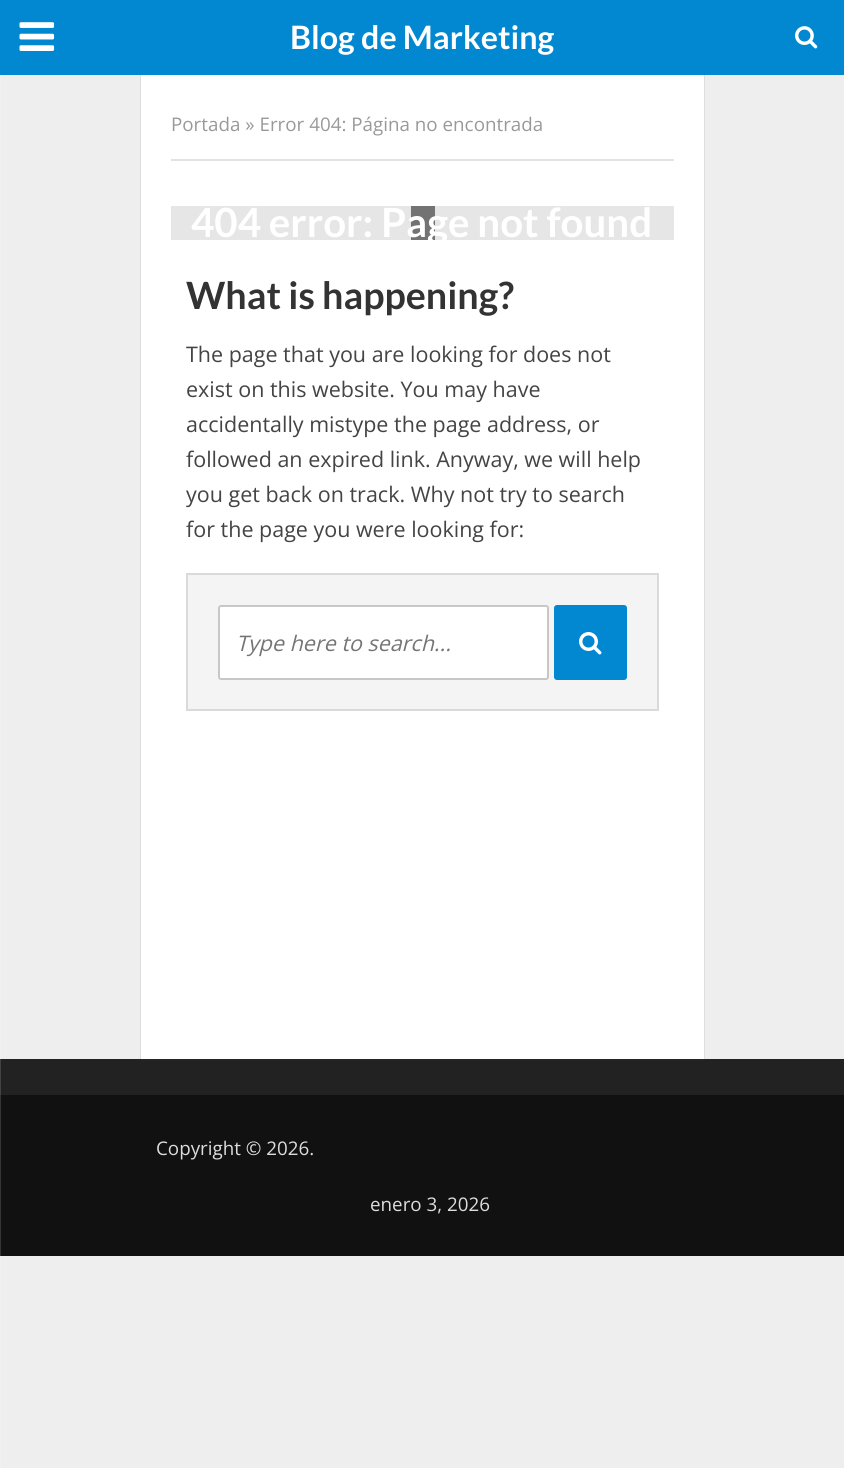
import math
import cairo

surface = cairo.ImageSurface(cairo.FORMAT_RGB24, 844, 1468)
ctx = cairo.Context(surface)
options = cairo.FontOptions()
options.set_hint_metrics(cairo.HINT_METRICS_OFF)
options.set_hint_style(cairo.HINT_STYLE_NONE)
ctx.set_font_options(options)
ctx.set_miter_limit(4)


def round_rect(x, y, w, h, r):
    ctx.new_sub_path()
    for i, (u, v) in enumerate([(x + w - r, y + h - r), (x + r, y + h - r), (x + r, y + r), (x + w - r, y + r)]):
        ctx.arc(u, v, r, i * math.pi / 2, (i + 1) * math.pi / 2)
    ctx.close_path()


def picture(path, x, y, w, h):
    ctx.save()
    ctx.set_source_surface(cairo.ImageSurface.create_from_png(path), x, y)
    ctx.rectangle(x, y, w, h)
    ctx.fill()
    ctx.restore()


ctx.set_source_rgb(0.933, 0.933, 0.933)
ctx.paint()
ctx.set_source_rgb(0.945, 0.945, 0.945)
ctx.rectangle(0, 75, 1, 1393)
ctx.fill()
ctx.set_source_rgb(0.133, 0.133, 0.133)
ctx.rectangle(1, 1059, 843, 36)
ctx.fill()
ctx.rectangle(141, 75, 563, 985)
ctx.set_source_rgba(0.267, 0.267, 0.267, 0.1)
ctx.stroke()
ctx.set_source_rgb(0.008, 0.533, 0.82)
ctx.rectangle(0, 0, 844, 75)
ctx.fill()
picture("img1.png", 19, 22, 36, 29)
ctx.select_font_face("Lato", cairo.FONT_SLANT_NORMAL, cairo.FONT_WEIGHT_BOLD)
ctx.set_font_size(32.25)
ctx.set_source_rgb(1, 1, 1)
ctx.move_to(290, 49)
ctx.show_text("Blog de Marketing")
picture("img2.png", 795, 26, 23, 23)
ctx.rectangle(141, 75, 563, 984)
ctx.fill()
ctx.set_source_rgb(0.89, 0.89, 0.89)
ctx.rectangle(171, 159, 503, 2)
ctx.fill()
ctx.select_font_face("Open Sans")
ctx.set_font_size(18.8)
ctx.set_source_rgb(0.6, 0.6, 0.6)
ctx.move_to(171, 131)
ctx.show_text("Portada » Error 404: Página no encontrada")
ctx.set_source_rgb(0.902, 0.902, 0.902)
ctx.rectangle(171, 206, 503, 34)
ctx.fill()
ctx.set_source_rgb(0.451, 0.451, 0.451)
ctx.rectangle(411, 206, 24, 34)
ctx.fill()
ctx.select_font_face("Lato", cairo.FONT_SLANT_NORMAL, cairo.FONT_WEIGHT_BOLD)
ctx.set_font_size(40.25)
ctx.set_source_rgb(1, 1, 1)
ctx.move_to(191, 237)
ctx.show_text("404 error: Page not found")
ctx.set_font_size(37.6)
ctx.set_source_rgb(0.2, 0.2, 0.2)
ctx.move_to(186, 309)
ctx.show_text("What is happening?")
ctx.select_font_face("Open Sans")
ctx.set_font_size(21.5)
ctx.set_source_rgb(0.267, 0.267, 0.267)
ctx.move_to(186, 362)
ctx.show_text("The page that you are looking for does not")
ctx.move_to(186, 397)
ctx.show_text("exist on this website. You may have")
ctx.move_to(186, 432)
ctx.show_text("accidentally mistype the page address, or")
ctx.move_to(186, 467)
ctx.show_text("followed an expired link. Anyway, we will help")
ctx.move_to(186, 502)
ctx.show_text("you get back on track. Why not try to search")
ctx.move_to(186, 537)
ctx.show_text("for the page you were looking for:")
ctx.set_source_rgb(0.957, 0.957, 0.957)
ctx.rectangle(187, 574, 471, 136)
ctx.fill_preserve()
ctx.set_source_rgb(0.855, 0.855, 0.855)
ctx.stroke()
ctx.set_source_rgb(1, 1, 1)
round_rect(218, 605, 331, 75, 3)
ctx.fill()
round_rect(219, 606, 329, 73, 2)
ctx.set_source_rgba(0.267, 0.267, 0.267, 0.3)
ctx.stroke()
ctx.select_font_face("Open Sans", cairo.FONT_SLANT_ITALIC)
ctx.set_source_rgb(0.459, 0.459, 0.459)
ctx.move_to(236, 651)
ctx.show_text("Type here to search...")
ctx.set_source_rgb(0.008, 0.533, 0.82)
round_rect(554, 605, 73, 75, 3)
ctx.fill()
picture("img3.png", 579, 632, 23, 23)
ctx.set_source_rgb(0.263, 0.263, 0.263)
ctx.rectangle(0, 1059, 1, 36)
ctx.fill()
ctx.set_source_rgb(0.067, 0.067, 0.067)
ctx.rectangle(1, 1095, 843, 161)
ctx.fill()
ctx.set_source_rgb(0.208, 0.208, 0.208)
ctx.rectangle(0, 1095, 1, 161)
ctx.fill()
ctx.select_font_face("Open Sans")
ctx.set_font_size(18.8)
ctx.set_source_rgb(0.867, 0.867, 0.867)
ctx.move_to(156, 1155)
ctx.show_text("Copyright © 2026.")
ctx.move_to(370, 1211)
ctx.show_text("enero 3, 2026")
surface.write_to_png("page.png")
